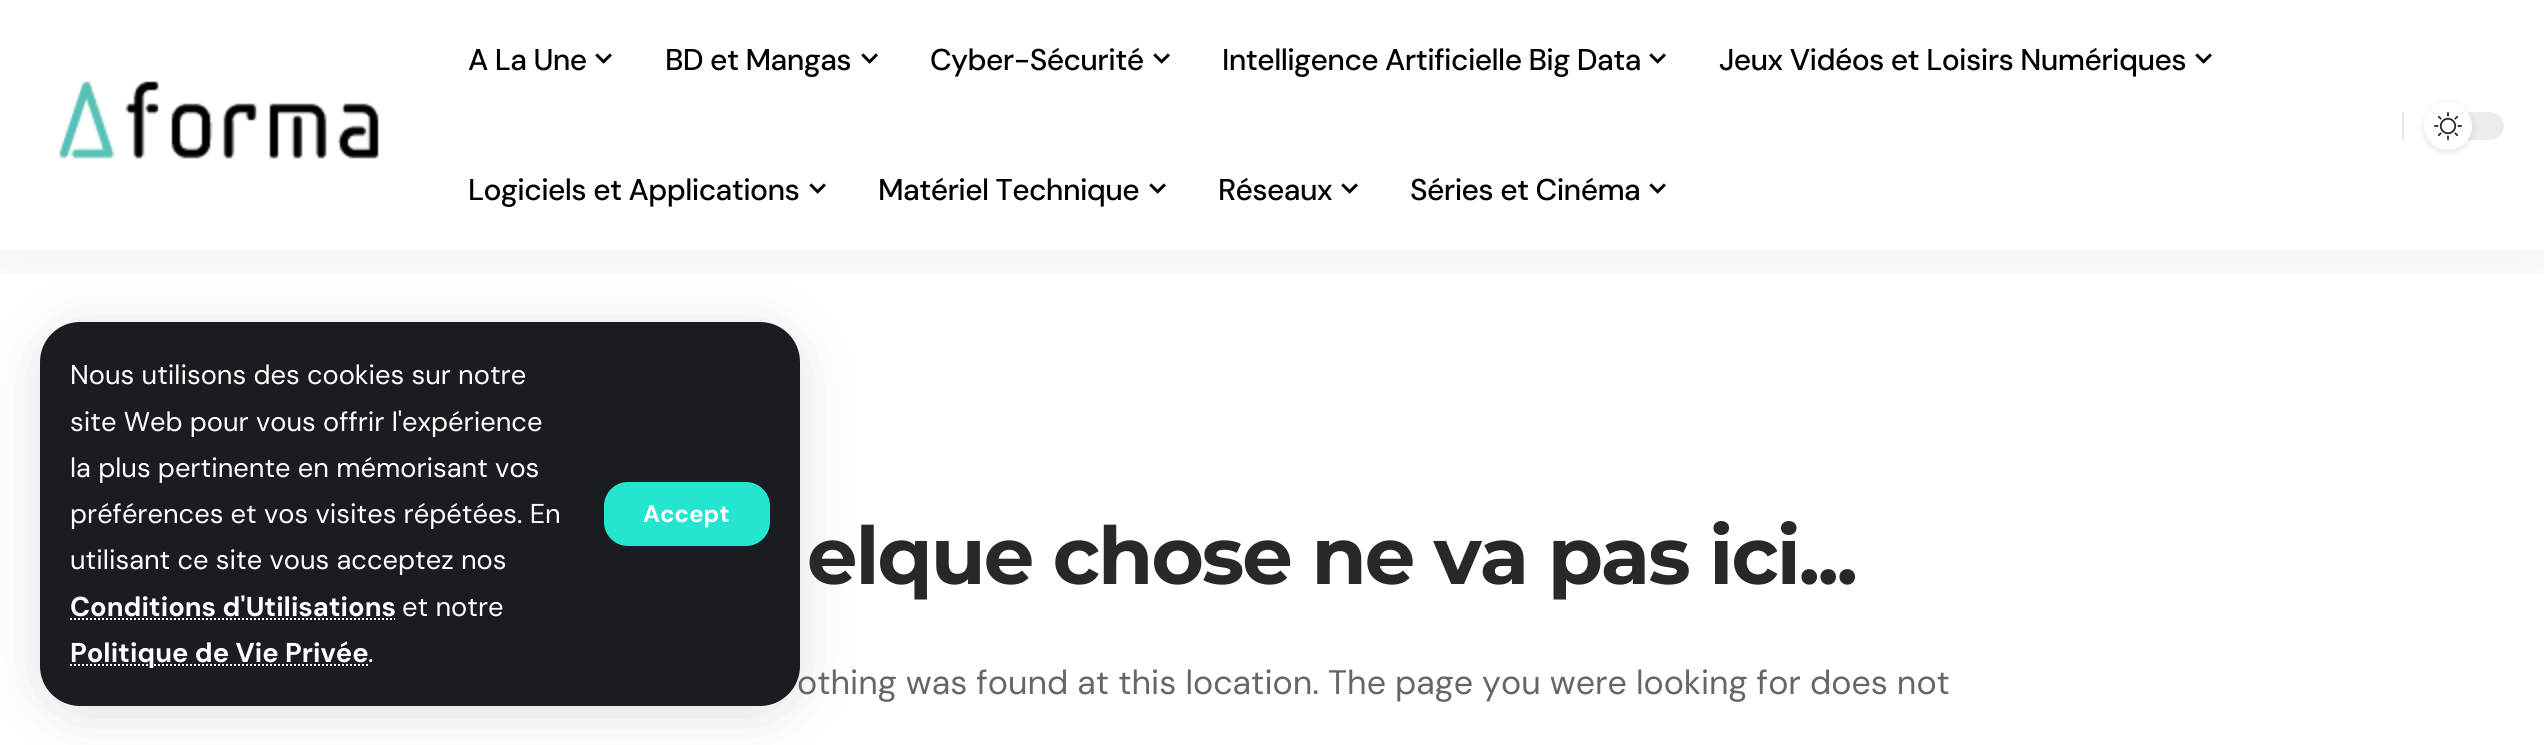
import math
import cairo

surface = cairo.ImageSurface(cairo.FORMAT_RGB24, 2544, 745)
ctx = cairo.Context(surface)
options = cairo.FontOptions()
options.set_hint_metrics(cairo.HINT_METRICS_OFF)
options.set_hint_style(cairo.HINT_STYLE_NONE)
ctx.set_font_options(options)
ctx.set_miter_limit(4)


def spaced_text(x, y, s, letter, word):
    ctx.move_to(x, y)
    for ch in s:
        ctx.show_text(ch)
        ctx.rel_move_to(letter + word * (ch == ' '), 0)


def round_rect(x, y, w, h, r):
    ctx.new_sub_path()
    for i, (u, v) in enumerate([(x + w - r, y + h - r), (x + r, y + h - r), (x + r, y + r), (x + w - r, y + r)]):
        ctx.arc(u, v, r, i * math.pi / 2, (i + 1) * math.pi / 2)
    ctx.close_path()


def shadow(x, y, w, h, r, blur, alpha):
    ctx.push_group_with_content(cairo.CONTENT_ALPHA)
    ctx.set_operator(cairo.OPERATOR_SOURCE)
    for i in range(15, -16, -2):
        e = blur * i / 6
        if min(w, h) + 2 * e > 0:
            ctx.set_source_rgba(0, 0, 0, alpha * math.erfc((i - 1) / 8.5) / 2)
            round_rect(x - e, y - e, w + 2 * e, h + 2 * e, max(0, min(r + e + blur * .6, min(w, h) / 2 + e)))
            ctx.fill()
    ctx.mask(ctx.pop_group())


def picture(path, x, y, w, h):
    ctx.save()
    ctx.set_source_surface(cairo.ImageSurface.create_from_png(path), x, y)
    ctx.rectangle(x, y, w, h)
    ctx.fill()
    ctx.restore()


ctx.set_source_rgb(1, 1, 1)
ctx.paint()
ctx.save()
ctx.rectangle(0, 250, 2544, 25)
ctx.clip()
ctx.set_source_rgb(0, 0, 0)
shadow(0, 8, 2544, 250, 0, 30, 0.07)
ctx.restore()
picture("img1.png", 59, 81, 320, 78)
ctx.select_font_face("DM Sans Medium")
ctx.set_font_size(30)
ctx.set_source_rgb(0, 0, 0)
spaced_text(468, 70, "A La Une", -0.6, 0)
picture("img2.png", 595, 53, 17, 11)
spaced_text(665, 70, "BD et Mangas", -0.6, 0)
picture("img2.png", 861, 53, 17, 11)
spaced_text(930, 70, "Cyber-Sécurité", -0.6, 0)
picture("img2.png", 1153, 53, 17, 11)
spaced_text(1222, 70, "Intelligence Artificielle Big Data", -0.6, 0)
picture("img2.png", 1649, 53, 17, 11)
spaced_text(1719, 70, "Jeux Vidéos et Loisirs Numériques", -0.6, 0)
picture("img2.png", 2195, 53, 17, 11)
spaced_text(468, 200, "Logiciels et Applications", -0.6, 0)
picture("img2.png", 809, 183, 17, 11)
spaced_text(878, 200, "Matériel Technique", -0.6, 0)
picture("img2.png", 1149, 183, 17, 11)
spaced_text(1218, 200, "Réseaux", -0.6, 0)
picture("img2.png", 1341, 183, 17, 11)
spaced_text(1410, 200, "Séries et Cinéma", -0.6, 0)
picture("img2.png", 1649, 183, 17, 11)
ctx.set_source_rgb(0.902, 0.902, 0.902)
ctx.rectangle(2402, 112, 2, 28)
ctx.fill()
ctx.set_source_rgb(0.929, 0.929, 0.929)
round_rect(2424, 112, 80, 28, 14)
ctx.fill()
ctx.set_source_rgb(0, 0, 0)
shadow(2424, 104, 48, 48, 24, 4, 0.12)
ctx.set_source_rgb(1, 1, 1)
ctx.arc(2448, 126, 24, 0, 2 * math.pi)
ctx.fill()
picture("img3.png", 2434, 112, 28, 28)
ctx.set_source_rgb(0, 0, 0)
shadow(40, 330, 760, 384, 40, 30, 0.12)
ctx.select_font_face("DM Sans")
ctx.set_font_size(34)
ctx.set_source_rgb(0.4, 0.4, 0.4)
ctx.move_to(797, 694)
ctx.show_text("othing was found at this location. The page you were looking for does not")
ctx.set_source_rgb(0.098, 0.11, 0.125)
round_rect(40, 322, 760, 384, 40)
ctx.fill()
ctx.set_font_size(27.25)
ctx.set_source_rgb(1, 1, 1)
ctx.move_to(70, 384)
ctx.show_text("Nous utilisons des cookies sur notre")
ctx.move_to(70, 431)
ctx.show_text("site Web pour vous offrir l'expérience")
ctx.move_to(70, 477)
ctx.show_text("la plus pertinente en mémorisant vos")
ctx.move_to(70, 523)
ctx.show_text("préférences et vos visites répétées. En")
ctx.move_to(70, 569)
ctx.show_text("utilisant ce site vous acceptez nos")
ctx.select_font_face("DM Sans", cairo.FONT_SLANT_NORMAL, cairo.FONT_WEIGHT_BOLD)
ctx.move_to(70, 616)
ctx.show_text("Conditions d'Utilisations")
ctx.new_path()
ctx.move_to(70, 619)
ctx.line_to(395, 619)
ctx.set_dash([2, 2])
ctx.stroke()
ctx.select_font_face("DM Sans")
ctx.move_to(402, 616)
ctx.show_text("et notre")
ctx.new_path()
ctx.move_to(70, 665)
ctx.line_to(368, 665)
ctx.stroke()
ctx.select_font_face("DM Sans", cairo.FONT_SLANT_NORMAL, cairo.FONT_WEIGHT_BOLD)
ctx.move_to(70, 662)
ctx.show_text("Politique de Vie Privée")
ctx.select_font_face("DM Sans")
ctx.move_to(368, 662)
ctx.show_text(".")
ctx.set_source_rgb(0.141, 0.898, 0.812)
round_rect(604, 482, 166, 64, 24)
ctx.fill()
ctx.select_font_face("DM Sans", cairo.FONT_SLANT_NORMAL, cairo.FONT_WEIGHT_BOLD)
ctx.set_font_size(24)
ctx.set_source_rgb(1, 1, 1)
ctx.move_to(643, 522)
ctx.show_text("Accept")
ctx.select_font_face("Montserrat", cairo.FONT_SLANT_NORMAL, cairo.FONT_WEIGHT_BOLD)
ctx.set_font_size(80)
ctx.set_source_rgb(0.157, 0.157, 0.157)
spaced_text(807, 584, "elque chose ne va pas ici...", -2, 0)
surface.write_to_png("page.png")
